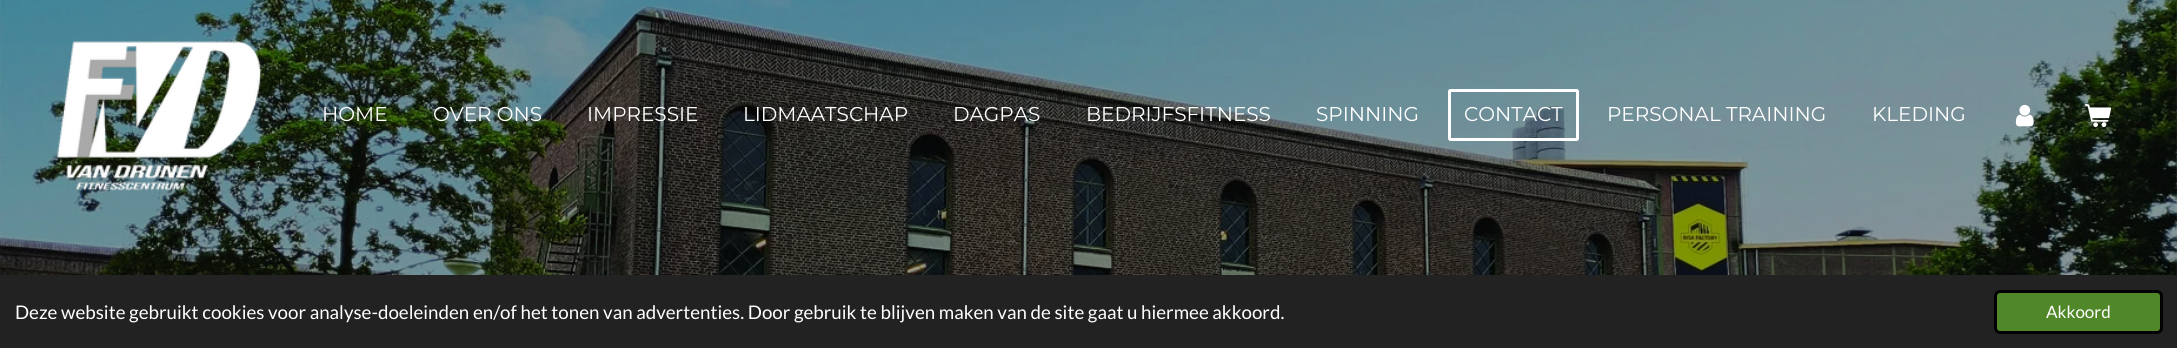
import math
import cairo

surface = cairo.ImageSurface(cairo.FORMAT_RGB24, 2177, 348)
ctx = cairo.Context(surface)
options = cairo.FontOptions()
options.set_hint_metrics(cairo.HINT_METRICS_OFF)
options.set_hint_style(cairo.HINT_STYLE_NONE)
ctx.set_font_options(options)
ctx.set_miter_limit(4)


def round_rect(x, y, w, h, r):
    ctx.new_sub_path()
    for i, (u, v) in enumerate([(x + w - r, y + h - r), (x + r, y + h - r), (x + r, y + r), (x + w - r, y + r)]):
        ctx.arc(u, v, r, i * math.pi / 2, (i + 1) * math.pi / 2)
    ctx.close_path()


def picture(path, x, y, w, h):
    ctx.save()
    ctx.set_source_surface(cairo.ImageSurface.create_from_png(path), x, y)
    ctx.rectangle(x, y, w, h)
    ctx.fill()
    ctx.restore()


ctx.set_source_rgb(1, 1, 1)
ctx.paint()
picture("img1.png", 0, 0, 2177, 275)
picture("img2.png", 56, 41, 206, 150)
ctx.select_font_face("Montserrat")
ctx.set_font_size(20)
ctx.set_source_rgb(1, 1, 1)
ctx.move_to(322, 121)
ctx.show_text("HOME")
ctx.move_to(433, 121)
ctx.show_text("OVER ONS")
ctx.move_to(587, 121)
ctx.show_text("IMPRESSIE")
ctx.move_to(743, 121)
ctx.show_text("LIDMAATSCHAP")
ctx.move_to(953, 121)
ctx.show_text("DAGPAS")
ctx.move_to(1086, 121)
ctx.show_text("BEDRIJFSFITNESS")
ctx.move_to(1316, 121)
ctx.show_text("SPINNING")
round_rect(1449.5, 90.5, 128, 49, 1)
ctx.set_line_width(3)
ctx.stroke()
ctx.move_to(1464, 121)
ctx.show_text("CONTACT")
ctx.move_to(1607, 121)
ctx.show_text("PERSONAL TRAINING")
ctx.move_to(1872, 121)
ctx.show_text("KLEDING")
picture("img3.png", 2015, 104, 19, 23)
picture("img4.png", 2085, 103, 27, 25)
ctx.set_source_rgb(0.133, 0.133, 0.133)
ctx.rectangle(0, 275, 2177, 73)
ctx.fill()
ctx.select_font_face("Lato")
ctx.set_font_size(18.75)
ctx.set_source_rgb(1, 1, 1)
ctx.move_to(15, 319)
ctx.show_text("Deze website gebruikt cookies voor analyse-doeleinden en/of het tonen van advertenties. Door gebruik te blijven maken van de site gaat u hiermee akkoord.")
ctx.set_source_rgb(0.314, 0.529, 0.161)
round_rect(1995.5, 291.5, 166, 41, 4.5)
ctx.fill_preserve()
ctx.set_source_rgb(0, 0, 0)
ctx.stroke()
ctx.set_font_size(17)
ctx.set_source_rgb(1, 1, 1)
ctx.move_to(2046, 318)
ctx.show_text("Akkoord")
surface.write_to_png("page.png")
